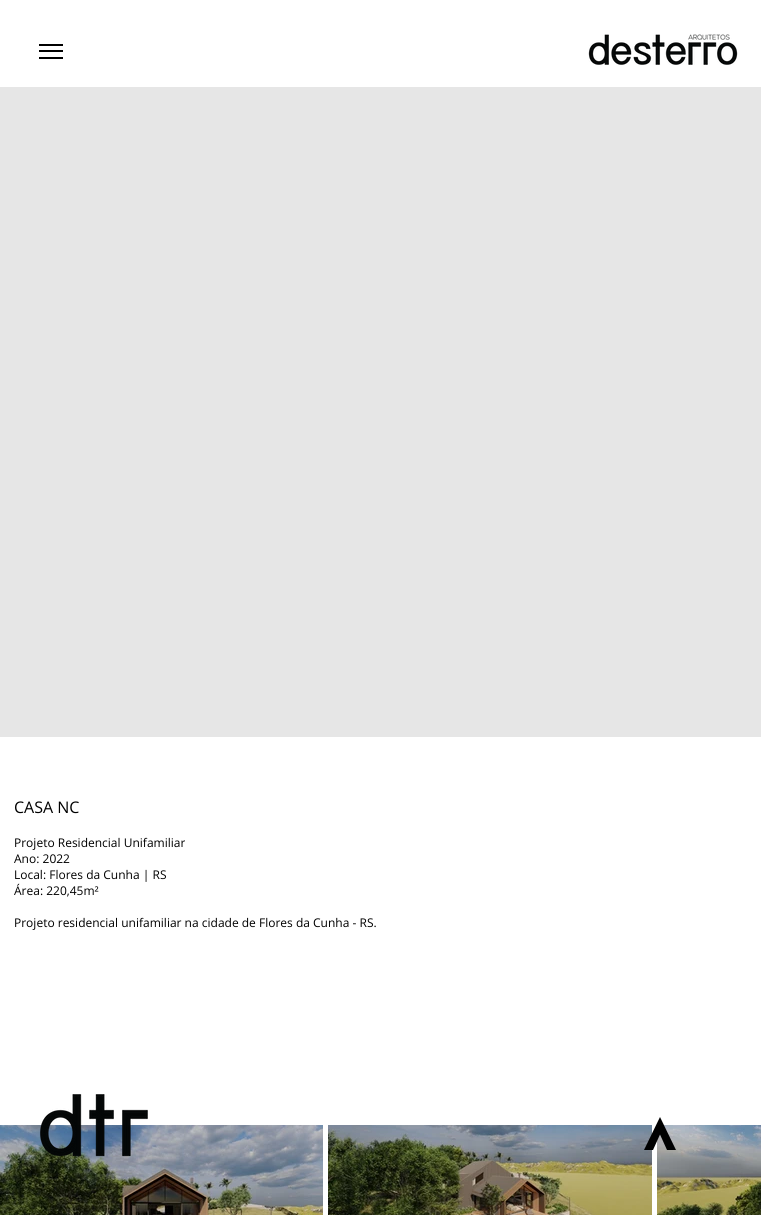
import math
import cairo

surface = cairo.ImageSurface(cairo.FORMAT_RGB24, 761, 1215)
ctx = cairo.Context(surface)
options = cairo.FontOptions()
options.set_hint_metrics(cairo.HINT_METRICS_OFF)
options.set_hint_style(cairo.HINT_STYLE_NONE)
ctx.set_font_options(options)
ctx.set_miter_limit(4)


def picture(path, x, y, w, h):
    ctx.save()
    ctx.set_source_surface(cairo.ImageSurface.create_from_png(path), x, y)
    ctx.rectangle(x, y, w, h)
    ctx.fill()
    ctx.restore()


ctx.set_source_rgb(1, 1, 1)
ctx.paint()
ctx.set_source_rgb(0, 0, 0)
ctx.rectangle(39, 57, 24, 2)
ctx.fill()
ctx.rectangle(39, 44, 24, 2)
ctx.fill()
ctx.rectangle(39, 50, 24, 2)
ctx.fill()
picture("img1.png", 588, 34, 150, 31)
ctx.set_source_rgb(0.902, 0.902, 0.902)
ctx.rectangle(0, 87, 761, 650)
ctx.fill()
ctx.select_font_face("Open Sans")
ctx.set_font_size(16)
ctx.set_source_rgb(0, 0, 0)
ctx.move_to(14, 813)
ctx.show_text("CASA NC")
ctx.set_font_size(12)
ctx.move_to(14, 847)
ctx.show_text("Projeto Residencial Unifamiliar")
ctx.move_to(14, 863)
ctx.show_text("Ano: 2022")
ctx.move_to(14, 879)
ctx.show_text("Local: Flores da Cunha | RS")
ctx.move_to(14, 895)
ctx.show_text("Área: 220,45m²")
ctx.move_to(14, 927)
ctx.show_text("Projeto residencial unifamiliar na cidade de Flores da Cunha - RS.")
picture("img2.png", 0, 1125, 323, 90)
picture("img3.png", 328, 1125, 324, 90)
picture("img4.png", 657, 1125, 104, 90)
picture("img5.png", 40, 1094, 108, 63)
ctx.new_path()
ctx.move_to(660, 1117)
ctx.line_to(676, 1150)
ctx.line_to(667, 1150)
ctx.line_to(660, 1134.5)
ctx.line_to(653, 1150)
ctx.line_to(644, 1150)
ctx.close_path()
ctx.fill()
surface.write_to_png("page.png")
